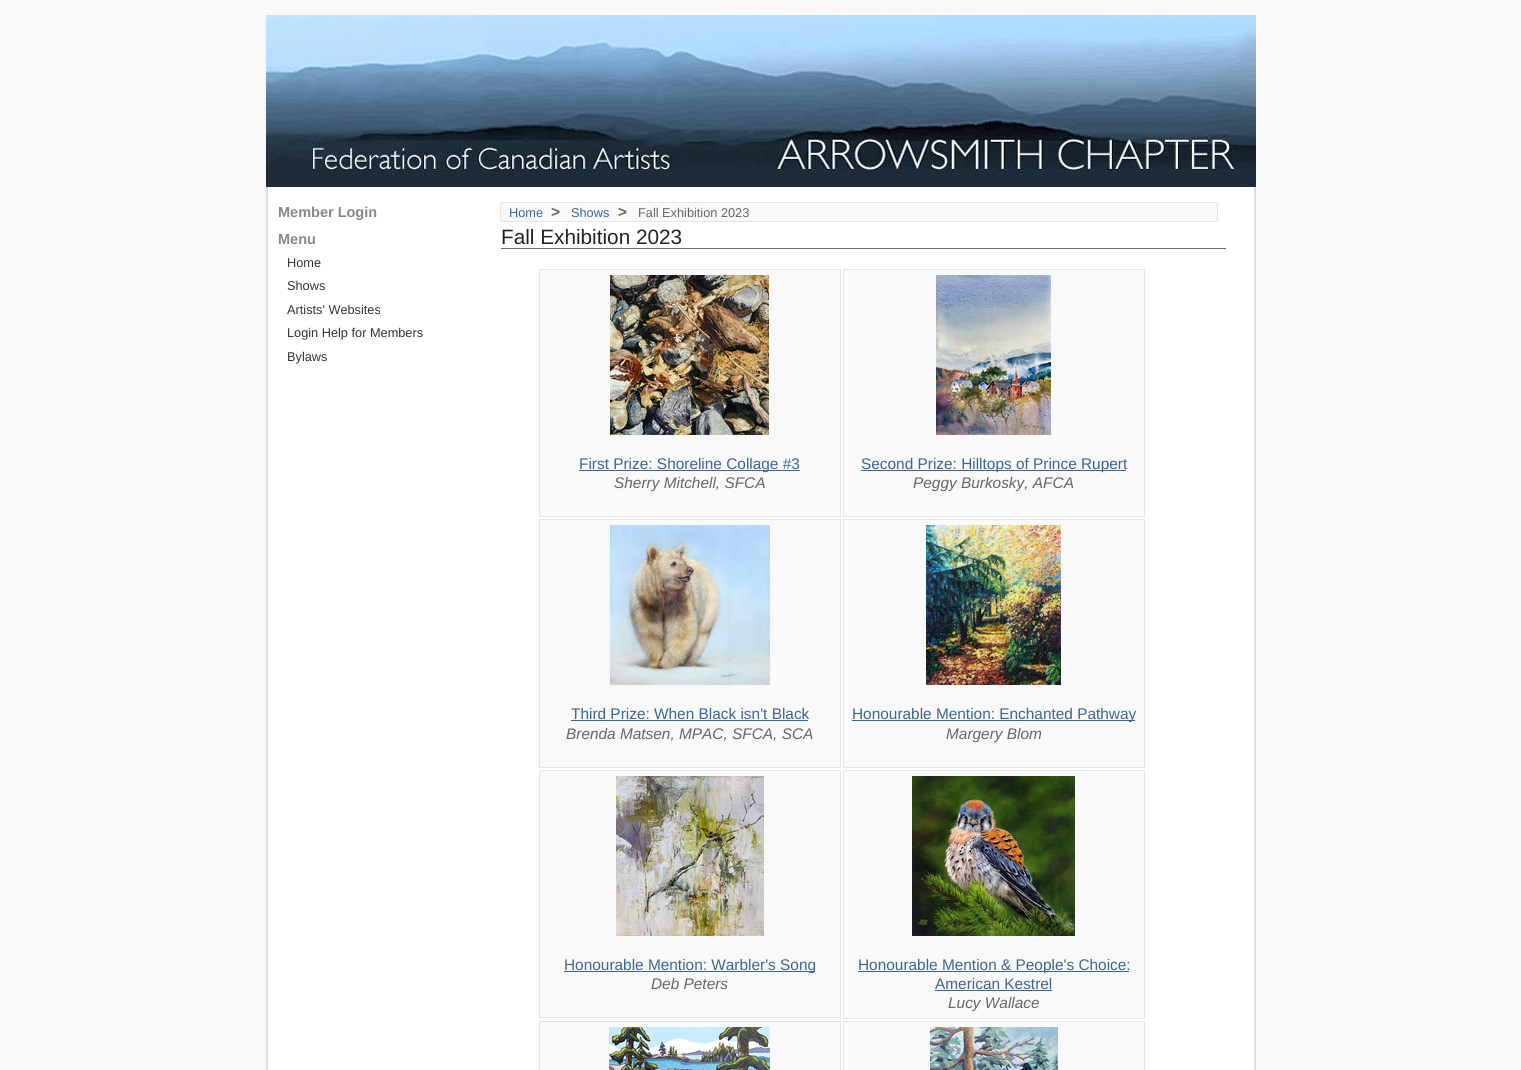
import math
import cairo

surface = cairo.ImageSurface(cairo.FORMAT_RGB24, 1521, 1070)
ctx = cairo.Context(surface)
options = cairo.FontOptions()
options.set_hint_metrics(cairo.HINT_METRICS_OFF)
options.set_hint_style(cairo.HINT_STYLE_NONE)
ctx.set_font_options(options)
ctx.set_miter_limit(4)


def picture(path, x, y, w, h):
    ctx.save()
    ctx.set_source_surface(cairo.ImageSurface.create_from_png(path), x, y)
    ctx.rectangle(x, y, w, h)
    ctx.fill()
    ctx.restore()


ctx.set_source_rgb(0.969, 0.969, 0.969)
ctx.paint()
picture("img1.png", 266, 15, 990, 172)
ctx.set_source_rgb(1, 1, 1)
ctx.rectangle(268, 187, 986, 883)
ctx.fill()
ctx.set_source_rgb(0.871, 0.871, 0.871)
ctx.rectangle(1254, 187, 2, 883)
ctx.fill()
ctx.rectangle(266, 187, 2, 883)
ctx.fill()
ctx.select_font_face("Liberation Sans", cairo.FONT_SLANT_NORMAL, cairo.FONT_WEIGHT_BOLD)
ctx.set_font_size(14.5)
ctx.set_source_rgb(0.533, 0.533, 0.533)
ctx.move_to(278, 217)
ctx.show_text("Member Login")
ctx.move_to(278, 244)
ctx.show_text("Menu")
ctx.select_font_face("Liberation Sans")
ctx.set_font_size(12.75)
ctx.set_source_rgb(0.2, 0.2, 0.2)
ctx.move_to(287, 267)
ctx.show_text("Home")
ctx.move_to(287, 290)
ctx.show_text("Shows")
ctx.move_to(287, 314)
ctx.show_text("Artists' Websites")
ctx.move_to(287, 337)
ctx.show_text("Login Help for Members")
ctx.move_to(287, 361)
ctx.show_text("Bylaws")
ctx.set_source_rgb(0.973, 0.973, 0.973)
ctx.rectangle(500.5, 202.5, 717, 19)
ctx.fill_preserve()
ctx.set_source_rgb(0.898, 0.898, 0.898)
ctx.set_line_width(1)
ctx.stroke()
ctx.set_source_rgb(0.235, 0.4, 0.569)
ctx.move_to(509, 217)
ctx.show_text("Home")
ctx.select_font_face("Liberation Sans", cairo.FONT_SLANT_NORMAL, cairo.FONT_WEIGHT_BOLD)
ctx.set_font_size(15.4)
ctx.set_source_rgb(0.4, 0.4, 0.4)
ctx.move_to(551, 217)
ctx.show_text(">")
ctx.select_font_face("Liberation Sans")
ctx.set_font_size(12.75)
ctx.set_source_rgb(0.235, 0.4, 0.569)
ctx.move_to(571, 217)
ctx.show_text("Shows")
ctx.select_font_face("Liberation Sans", cairo.FONT_SLANT_NORMAL, cairo.FONT_WEIGHT_BOLD)
ctx.set_font_size(15.4)
ctx.set_source_rgb(0.4, 0.4, 0.4)
ctx.move_to(618, 217)
ctx.show_text(">")
ctx.select_font_face("Liberation Sans")
ctx.set_font_size(12.75)
ctx.move_to(638, 217)
ctx.show_text("Fall Exhibition 2023")
ctx.rectangle(501, 248, 725, 1)
ctx.fill()
ctx.set_font_size(20.75)
ctx.set_source_rgb(0.133, 0.133, 0.133)
ctx.move_to(501, 244)
ctx.show_text("Fall Exhibition 2023")
ctx.set_source_rgb(0.973, 0.973, 0.973)
ctx.rectangle(539.5, 269.5, 301, 247)
ctx.fill_preserve()
ctx.set_source_rgb(0.898, 0.898, 0.898)
ctx.stroke()
picture("img2.png", 610, 275, 159, 160)
ctx.set_source_rgb(0.235, 0.4, 0.569)
ctx.rectangle(579, 470, 221, 1)
ctx.fill()
ctx.set_font_size(15.4)
ctx.move_to(579, 469)
ctx.show_text("First Prize: Shoreline Collage #3")
ctx.select_font_face("Liberation Sans", cairo.FONT_SLANT_ITALIC)
ctx.set_source_rgb(0.4, 0.4, 0.4)
ctx.move_to(614, 488)
ctx.show_text("Sherry Mitchell, SFCA")
ctx.set_source_rgb(0.973, 0.973, 0.973)
ctx.rectangle(843.5, 269.5, 301, 247)
ctx.fill_preserve()
ctx.set_source_rgb(0.898, 0.898, 0.898)
ctx.stroke()
picture("img3.png", 936, 275, 115, 160)
ctx.set_source_rgb(0.235, 0.4, 0.569)
ctx.rectangle(861, 470, 265, 1)
ctx.fill()
ctx.select_font_face("Liberation Sans")
ctx.move_to(861, 469)
ctx.show_text("Second Prize: Hilltops of Prince Rupert")
ctx.select_font_face("Liberation Sans", cairo.FONT_SLANT_ITALIC)
ctx.set_source_rgb(0.4, 0.4, 0.4)
ctx.move_to(913, 488)
ctx.show_text("Peggy Burkosky, AFCA")
ctx.set_source_rgb(0.973, 0.973, 0.973)
ctx.rectangle(539.5, 519.5, 301, 248)
ctx.fill_preserve()
ctx.set_source_rgb(0.898, 0.898, 0.898)
ctx.stroke()
picture("img4.png", 610, 525, 160, 160)
ctx.select_font_face("Liberation Sans")
ctx.set_source_rgb(0.235, 0.4, 0.569)
ctx.move_to(571, 719)
ctx.show_text("Third Prize: When Black isn't Black")
ctx.rectangle(571, 720, 237, 1)
ctx.fill()
ctx.select_font_face("Liberation Sans", cairo.FONT_SLANT_ITALIC)
ctx.set_source_rgb(0.4, 0.4, 0.4)
ctx.move_to(566, 739)
ctx.show_text("Brenda Matsen, MPAC, SFCA, SCA")
ctx.set_source_rgb(0.973, 0.973, 0.973)
ctx.rectangle(843.5, 519.5, 301, 248)
ctx.fill_preserve()
ctx.set_source_rgb(0.898, 0.898, 0.898)
ctx.stroke()
picture("img5.png", 926, 525, 135, 160)
ctx.set_source_rgb(0.235, 0.4, 0.569)
ctx.rectangle(852, 720, 283, 1)
ctx.fill()
ctx.select_font_face("Liberation Sans")
ctx.move_to(852, 719)
ctx.show_text("Honourable Mention: Enchanted Pathway")
ctx.select_font_face("Liberation Sans", cairo.FONT_SLANT_ITALIC)
ctx.set_source_rgb(0.4, 0.4, 0.4)
ctx.move_to(946, 739)
ctx.show_text("Margery Blom")
ctx.set_source_rgb(0.973, 0.973, 0.973)
ctx.rectangle(539.5, 770.5, 301, 247)
ctx.fill_preserve()
ctx.set_source_rgb(0.898, 0.898, 0.898)
ctx.stroke()
picture("img6.png", 616, 776, 148, 160)
ctx.set_source_rgb(0.235, 0.4, 0.569)
ctx.rectangle(564, 971, 251, 1)
ctx.fill()
ctx.select_font_face("Liberation Sans")
ctx.move_to(564, 970)
ctx.show_text("Honourable Mention: Warbler's Song")
ctx.select_font_face("Liberation Sans", cairo.FONT_SLANT_ITALIC)
ctx.set_source_rgb(0.4, 0.4, 0.4)
ctx.move_to(651, 989)
ctx.show_text("Deb Peters")
ctx.set_source_rgb(0.973, 0.973, 0.973)
ctx.rectangle(843.5, 770.5, 301, 248)
ctx.fill_preserve()
ctx.set_source_rgb(0.898, 0.898, 0.898)
ctx.stroke()
picture("img7.png", 912, 776, 163, 160)
ctx.set_source_rgb(0.235, 0.4, 0.569)
ctx.rectangle(858, 971, 271, 1)
ctx.fill()
ctx.select_font_face("Liberation Sans")
ctx.move_to(858, 970)
ctx.show_text("Honourable Mention & People's Choice:")
ctx.move_to(935, 989)
ctx.show_text("American Kestrel")
ctx.rectangle(935, 990, 117, 1)
ctx.fill()
ctx.select_font_face("Liberation Sans", cairo.FONT_SLANT_ITALIC)
ctx.set_source_rgb(0.4, 0.4, 0.4)
ctx.move_to(948, 1008)
ctx.show_text("Lucy Wallace")
ctx.set_source_rgb(0.973, 0.973, 0.973)
ctx.rectangle(539.5, 1021.5, 301, 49)
ctx.fill_preserve()
ctx.set_source_rgb(0.898, 0.898, 0.898)
ctx.stroke()
picture("img8.png", 609, 1027, 161, 43)
ctx.set_source_rgb(0.973, 0.973, 0.973)
ctx.rectangle(843.5, 1021.5, 301, 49)
ctx.fill_preserve()
ctx.set_source_rgb(0.898, 0.898, 0.898)
ctx.stroke()
picture("img9.png", 930, 1027, 128, 43)
surface.write_to_png("page.png")
